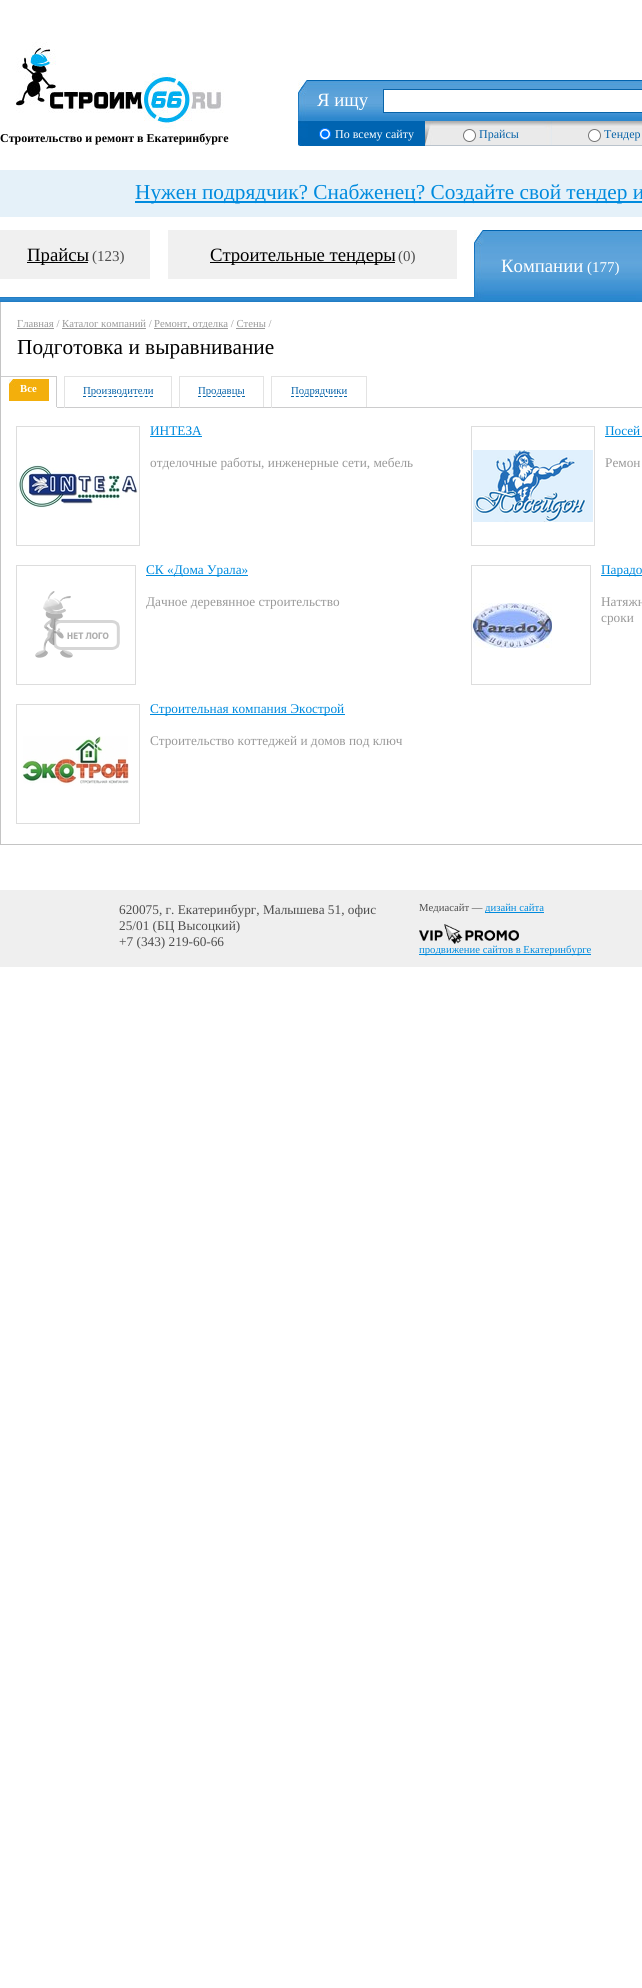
import math
import cairo

surface = cairo.ImageSurface(cairo.FORMAT_RGB24, 642, 1988)
ctx = cairo.Context(surface)
options = cairo.FontOptions()
options.set_hint_metrics(cairo.HINT_METRICS_OFF)
options.set_hint_style(cairo.HINT_STYLE_NONE)
ctx.set_font_options(options)
ctx.set_miter_limit(4)


def picture(path, x, y, w, h):
    ctx.save()
    ctx.set_source_surface(cairo.ImageSurface.create_from_png(path), x, y)
    ctx.rectangle(x, y, w, h)
    ctx.fill()
    ctx.restore()


ctx.set_source_rgb(1, 1, 1)
ctx.paint()
ctx.select_font_face("Liberation Serif", cairo.FONT_SLANT_NORMAL, cairo.FONT_WEIGHT_BOLD)
ctx.set_font_size(12)
ctx.set_source_rgb(0, 0, 0)
ctx.move_to(0, 142)
ctx.show_text("Строительство и ремонт в Екатеринбурге")
picture("img1.png", 16, 42, 208, 87)
picture("img2.png", 298, 80, 10, 66)
picture("img3.png", 308, 80, 334, 41)
ctx.select_font_face("Liberation Serif")
ctx.set_font_size(18.75)
ctx.set_source_rgb(1, 1, 1)
ctx.move_to(317, 106)
ctx.show_text("Я ищу")
ctx.rectangle(383.5, 89.5, 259, 23)
ctx.fill_preserve()
ctx.set_source_rgb(0.035, 0.392, 0.663)
ctx.set_line_width(1)
ctx.stroke()
ctx.set_source_rgb(0, 0.392, 0.694)
ctx.rectangle(308, 121, 117, 25)
ctx.fill()
ctx.set_source_rgb(1, 1, 1)
ctx.arc(325, 134, 5.5, 0, 2 * math.pi)
ctx.fill_preserve()
ctx.set_source_rgb(0, 0.459, 1)
ctx.stroke()
ctx.arc(325, 134, 3.5, 0, 2 * math.pi)
ctx.fill()
ctx.set_font_size(12)
ctx.set_source_rgb(1, 1, 1)
ctx.move_to(335, 138)
ctx.show_text("По всему сайту")
picture("img4.png", 425, 121, 127, 25)
ctx.arc(469.5, 135.5, 6, 0, 2 * math.pi)
ctx.fill_preserve()
ctx.set_source_rgb(0.463, 0.463, 0.463)
ctx.stroke()
ctx.set_source_rgb(0.035, 0.388, 0.659)
ctx.move_to(479, 138)
ctx.show_text("Прайсы")
picture("img5.png", 552, 121, 90, 25)
ctx.set_source_rgb(1, 1, 1)
ctx.arc(594.5, 135.5, 6, 0, 2 * math.pi)
ctx.fill_preserve()
ctx.set_source_rgb(0.463, 0.463, 0.463)
ctx.stroke()
ctx.set_source_rgb(0.035, 0.388, 0.659)
ctx.move_to(604, 138)
ctx.show_text("Тендер")
ctx.set_source_rgb(0.898, 0.945, 0.976)
ctx.rectangle(0, 170, 642, 47)
ctx.fill()
ctx.set_source_rgb(0, 0.545, 0.871)
ctx.rectangle(135, 201, 507, 2)
ctx.fill()
ctx.set_font_size(21.3)
ctx.move_to(135, 199)
ctx.show_text("Нужен подрядчик? Снабженец? Создайте свой тендер и")
ctx.set_source_rgb(0.941, 0.941, 0.941)
ctx.rectangle(0, 230, 150, 49)
ctx.fill()
ctx.set_source_rgb(0, 0, 0)
ctx.rectangle(27, 262, 61, 1)
ctx.fill()
ctx.set_font_size(18.75)
ctx.move_to(27, 261)
ctx.show_text("Прайсы")
ctx.set_font_size(15)
ctx.set_source_rgb(0.302, 0.302, 0.302)
ctx.move_to(92, 261)
ctx.show_text("(123)")
picture("img6.png", 0, 297, 150, 5)
ctx.set_source_rgb(0.941, 0.941, 0.941)
ctx.rectangle(168, 230, 289, 49)
ctx.fill()
ctx.set_source_rgb(0, 0, 0)
ctx.rectangle(210, 262, 185, 1)
ctx.fill()
ctx.set_font_size(18.75)
ctx.move_to(210, 261)
ctx.show_text("Строительные тендеры")
ctx.set_font_size(15)
ctx.set_source_rgb(0.302, 0.302, 0.302)
ctx.move_to(398, 261)
ctx.show_text("(0)")
picture("img7.png", 168, 297, 289, 5)
picture("img8.png", 474, 230, 10, 72)
picture("img9.png", 484, 230, 152, 72)
ctx.set_font_size(18.75)
ctx.set_source_rgb(1, 1, 1)
ctx.move_to(501, 272)
ctx.show_text("Компании")
ctx.set_font_size(15)
ctx.move_to(587, 272)
ctx.show_text("(177)")
picture("img10.png", 636, 230, 6, 72)
picture("img11.png", 150, 297, 18, 5)
picture("img12.png", 457, 297, 17, 5)
ctx.set_source_rgb(0.769, 0.769, 0.769)
ctx.rectangle(0, 844, 642, 1)
ctx.fill()
ctx.rectangle(0, 302, 1, 543)
ctx.fill()
ctx.set_font_size(10.7)
ctx.set_source_rgb(0.6, 0.6, 0.6)
ctx.move_to(17, 327)
ctx.show_text("Главная / Каталог компаний /")
ctx.rectangle(17, 328, 37, 1)
ctx.fill()
ctx.rectangle(154, 328, 74, 1)
ctx.fill()
ctx.move_to(154, 327)
ctx.show_text("Ремонт, отделка / Стены /")
ctx.rectangle(62, 328, 84, 1)
ctx.fill()
ctx.rectangle(236, 328, 29, 1)
ctx.fill()
ctx.set_font_size(21.3)
ctx.set_source_rgb(0, 0, 0)
ctx.move_to(17, 354)
ctx.show_text("Подготовка и выравнивание")
ctx.set_source_rgb(0.8, 0.8, 0.804)
ctx.rectangle(1, 376, 56, 1)
ctx.fill()
ctx.rectangle(56, 376, 1, 32)
ctx.fill()
ctx.set_source_rgb(1, 1, 1)
ctx.rectangle(56, 407, 1, 1)
ctx.fill()
picture("img13.png", 9, 379, 40, 22)
ctx.select_font_face("Liberation Serif", cairo.FONT_SLANT_NORMAL, cairo.FONT_WEIGHT_BOLD)
ctx.set_font_size(10.7)
ctx.move_to(20, 392)
ctx.show_text("Все")
ctx.set_source_rgb(0.89, 0.89, 0.89)
ctx.rectangle(64, 376, 108, 1)
ctx.fill()
ctx.rectangle(171, 376, 1, 32)
ctx.fill()
ctx.set_source_rgb(0.8, 0.8, 0.804)
ctx.rectangle(64, 407, 115, 1)
ctx.fill()
ctx.set_source_rgb(0.89, 0.89, 0.89)
ctx.rectangle(64, 376, 1, 32)
ctx.fill()
ctx.new_path()
ctx.move_to(83, 396.5)
ctx.line_to(153, 396.5)
ctx.set_source_rgb(0.035, 0.392, 0.663)
ctx.set_dash([3, 2.15])
ctx.stroke()
ctx.select_font_face("Liberation Serif")
ctx.set_source_rgb(0.035, 0.388, 0.659)
ctx.move_to(83, 394)
ctx.show_text("Производители")
ctx.set_source_rgb(0.89, 0.89, 0.89)
ctx.rectangle(179, 376, 85, 1)
ctx.fill()
ctx.rectangle(263, 376, 1, 32)
ctx.fill()
ctx.set_source_rgb(0.8, 0.8, 0.804)
ctx.rectangle(179, 407, 92, 1)
ctx.fill()
ctx.set_source_rgb(0.89, 0.89, 0.89)
ctx.rectangle(179, 376, 1, 32)
ctx.fill()
ctx.new_path()
ctx.move_to(198, 396.5)
ctx.line_to(245, 396.5)
ctx.set_source_rgb(0.035, 0.392, 0.663)
ctx.set_dash([3, 1.89])
ctx.stroke()
ctx.set_source_rgb(0.035, 0.388, 0.659)
ctx.move_to(198, 394)
ctx.show_text("Продавцы")
ctx.set_source_rgb(0.89, 0.89, 0.89)
ctx.rectangle(271, 376, 96, 1)
ctx.fill()
ctx.rectangle(366, 376, 1, 32)
ctx.fill()
ctx.set_source_rgb(0.8, 0.8, 0.804)
ctx.rectangle(271, 407, 371, 1)
ctx.fill()
ctx.set_source_rgb(0.89, 0.89, 0.89)
ctx.rectangle(271, 376, 1, 32)
ctx.fill()
ctx.new_path()
ctx.move_to(291, 396.5)
ctx.line_to(347, 396.5)
ctx.set_source_rgb(0.035, 0.392, 0.663)
ctx.set_dash([3, 1.82])
ctx.stroke()
ctx.set_source_rgb(0.035, 0.388, 0.659)
ctx.move_to(291, 394)
ctx.show_text("Подрядчики")
ctx.set_source_rgb(0.8, 0.8, 0.804)
ctx.rectangle(57, 407, 7, 1)
ctx.fill()
ctx.rectangle(16.5, 426.5, 123, 119)
ctx.set_source_rgb(0.867, 0.867, 0.867)
ctx.set_dash([])
ctx.stroke()
picture("img14.png", 18, 465, 120, 43)
ctx.set_font_size(13.3)
ctx.set_source_rgb(0, 0.545, 0.871)
ctx.move_to(150, 435)
ctx.show_text("ИНТЕЗА")
ctx.rectangle(150, 436, 52, 1)
ctx.fill()
ctx.set_source_rgb(0.6, 0.6, 0.6)
ctx.move_to(150, 467)
ctx.show_text("отделочные работы, инженерные сети, мебель")
ctx.rectangle(16.5, 565.5, 119, 119)
ctx.set_source_rgb(0.867, 0.867, 0.867)
ctx.stroke()
picture("img15.png", 35, 591, 85, 67)
ctx.set_source_rgb(0, 0.545, 0.871)
ctx.rectangle(146, 575, 102, 1)
ctx.fill()
ctx.move_to(146, 574)
ctx.show_text("СК «Дома Урала»")
ctx.set_source_rgb(0.6, 0.6, 0.6)
ctx.move_to(146, 606)
ctx.show_text("Дачное деревянное строительство")
ctx.rectangle(16.5, 704.5, 123, 119)
ctx.set_source_rgb(0.867, 0.867, 0.867)
ctx.stroke()
picture("img16.png", 21, 736, 108, 50)
ctx.set_source_rgb(0, 0.545, 0.871)
ctx.rectangle(150, 714, 195, 1)
ctx.fill()
ctx.move_to(150, 713)
ctx.show_text("Строительная компания Экострой")
ctx.set_source_rgb(0.6, 0.6, 0.6)
ctx.move_to(150, 745)
ctx.show_text("Строительство коттеджей и домов под ключ")
ctx.rectangle(471.5, 426.5, 123, 119)
ctx.set_source_rgb(0.867, 0.867, 0.867)
ctx.stroke()
picture("img17.png", 473, 450, 120, 72)
ctx.set_source_rgb(0, 0.545, 0.871)
ctx.move_to(605, 435)
ctx.show_text("Посей")
ctx.rectangle(605, 436, 37, 1)
ctx.fill()
ctx.set_source_rgb(0.6, 0.6, 0.6)
ctx.move_to(605, 467)
ctx.show_text("Ремон")
ctx.rectangle(471.5, 565.5, 119, 119)
ctx.set_source_rgb(0.867, 0.867, 0.867)
ctx.stroke()
picture("img18.png", 473, 603, 79, 45)
ctx.set_source_rgb(0, 0.545, 0.871)
ctx.rectangle(601, 575, 41, 1)
ctx.fill()
ctx.move_to(601, 574)
ctx.show_text("Парадо")
ctx.set_source_rgb(0.6, 0.6, 0.6)
ctx.move_to(601, 606)
ctx.show_text("Натяжн")
ctx.move_to(601, 622)
ctx.show_text("сроки")
ctx.set_source_rgb(0.937, 0.937, 0.937)
ctx.rectangle(0, 890, 642, 77)
ctx.fill()
ctx.set_source_rgb(0.302, 0.302, 0.302)
ctx.move_to(119, 914)
ctx.show_text("620075, г. Екатеринбург, Малышева 51, офис")
ctx.move_to(119, 930)
ctx.show_text("25/01 (БЦ Высоцкий)")
ctx.move_to(119, 946)
ctx.show_text("+7 (343) 219-60-66")
ctx.set_font_size(10.7)
ctx.move_to(419, 911)
ctx.show_text("Медиасайт —")
ctx.set_source_rgb(0, 0.545, 0.871)
ctx.rectangle(485, 912, 59, 1)
ctx.fill()
ctx.move_to(485, 911)
ctx.show_text("дизайн сайта")
picture("img19.png", 419, 924, 100, 20)
ctx.rectangle(419, 954, 172, 1)
ctx.fill()
ctx.move_to(419, 953)
ctx.show_text("продвижение сайтов в Екатеринбурге")
surface.write_to_png("page.png")
